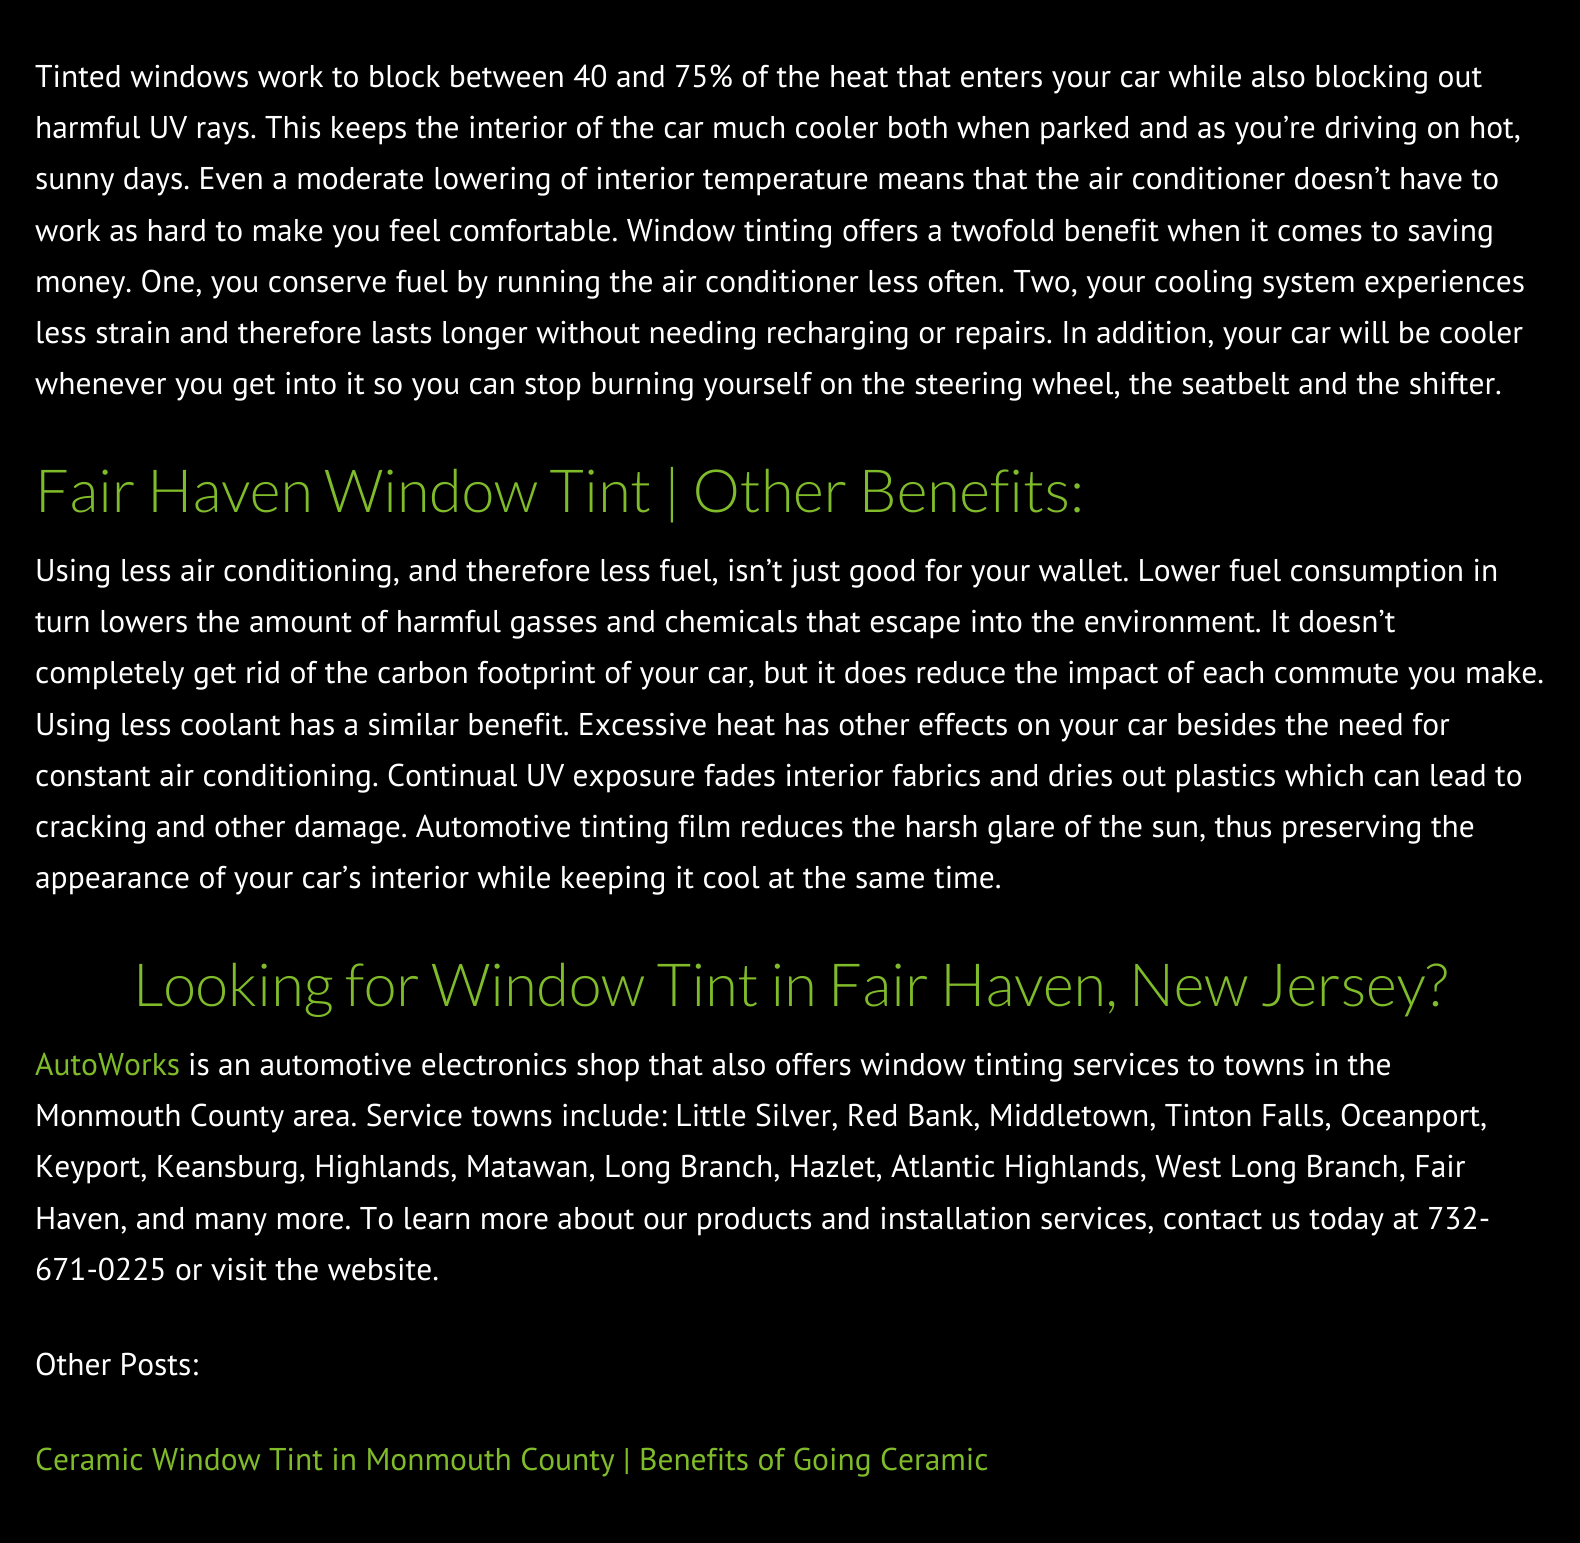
import math
import cairo

surface = cairo.ImageSurface(cairo.FORMAT_RGB24, 1580, 1543)
ctx = cairo.Context(surface)
options = cairo.FontOptions()
options.set_hint_metrics(cairo.HINT_METRICS_OFF)
options.set_hint_style(cairo.HINT_STYLE_NONE)
ctx.set_font_options(options)
ctx.set_miter_limit(4)


ctx.set_source_rgb(0, 0, 0)
ctx.paint()
ctx.select_font_face("PT Sans")
ctx.set_font_size(31.5)
ctx.set_source_rgb(1, 1, 1)
ctx.move_to(35, 87)
ctx.show_text("Tinted windows work to block between 40 and 75% of the heat that enters your car while also blocking out")
ctx.move_to(35, 138)
ctx.show_text("harmful UV rays. This keeps the interior of the car much cooler both when parked and as you’re driving on hot,")
ctx.move_to(35, 189)
ctx.show_text("sunny days. Even a moderate lowering of interior temperature means that the air conditioner doesn’t have to")
ctx.move_to(35, 241)
ctx.show_text("work as hard to make you feel comfortable. Window tinting offers a twofold benefit when it comes to saving")
ctx.move_to(35, 292)
ctx.show_text("money. One, you conserve fuel by running the air conditioner less often. Two, your cooling system experiences")
ctx.move_to(35, 343)
ctx.show_text("less strain and therefore lasts longer without needing recharging or repairs. In addition, your car will be cooler")
ctx.move_to(35, 394)
ctx.show_text("whenever you get into it so you can stop burning yourself on the steering wheel, the seatbelt and the shifter.")
ctx.select_font_face("Lato Light")
ctx.set_font_size(59.5)
ctx.set_source_rgb(0.502, 0.733, 0.165)
ctx.move_to(35, 512)
ctx.show_text("Fair Haven Window Tint | Other Benefits:")
ctx.select_font_face("PT Sans")
ctx.set_font_size(31.5)
ctx.set_source_rgb(1, 1, 1)
ctx.move_to(35, 581)
ctx.show_text("Using less air conditioning, and therefore less fuel, isn’t just good for your wallet. Lower fuel consumption in")
ctx.move_to(35, 632)
ctx.show_text("turn lowers the amount of harmful gasses and chemicals that escape into the environment. It doesn’t")
ctx.move_to(35, 683)
ctx.show_text("completely get rid of the carbon footprint of your car, but it does reduce the impact of each commute you make.")
ctx.move_to(35, 735)
ctx.show_text("Using less coolant has a similar benefit. Excessive heat has other effects on your car besides the need for")
ctx.move_to(35, 786)
ctx.show_text("constant air conditioning. Continual UV exposure fades interior fabrics and dries out plastics which can lead to")
ctx.move_to(35, 837)
ctx.show_text("cracking and other damage. Automotive tinting film reduces the harsh glare of the sun, thus preserving the")
ctx.move_to(35, 888)
ctx.show_text("appearance of your car’s interior while keeping it cool at the same time.")
ctx.select_font_face("Lato Light")
ctx.set_font_size(59.5)
ctx.set_source_rgb(0.502, 0.733, 0.165)
ctx.move_to(133, 1006)
ctx.show_text("Looking for Window Tint in Fair Haven, New Jersey?")
ctx.select_font_face("PT Sans")
ctx.set_font_size(31.5)
ctx.move_to(35, 1075)
ctx.show_text("AutoWorks")
ctx.set_source_rgb(1, 1, 1)
ctx.move_to(188, 1075)
ctx.show_text("is an automotive electronics shop that also offers window tinting services to towns in the")
ctx.move_to(35, 1126)
ctx.show_text("Monmouth County area. Service towns include: Little Silver, Red Bank, Middletown, Tinton Falls, Oceanport,")
ctx.move_to(35, 1177)
ctx.show_text("Keyport, Keansburg, Highlands, Matawan, Long Branch, Hazlet, Atlantic Highlands, West Long Branch, Fair")
ctx.move_to(35, 1229)
ctx.show_text("Haven, and many more. To learn more about our products and installation services, contact us today at 732-")
ctx.move_to(35, 1280)
ctx.show_text("671-0225 or visit the website.")
ctx.move_to(35, 1375)
ctx.show_text("Other Posts:")
ctx.set_source_rgb(0.502, 0.733, 0.165)
ctx.move_to(35, 1470)
ctx.show_text("Ceramic Window Tint in Monmouth County | Benefits of Going Ceramic")
surface.write_to_png("page.png")
